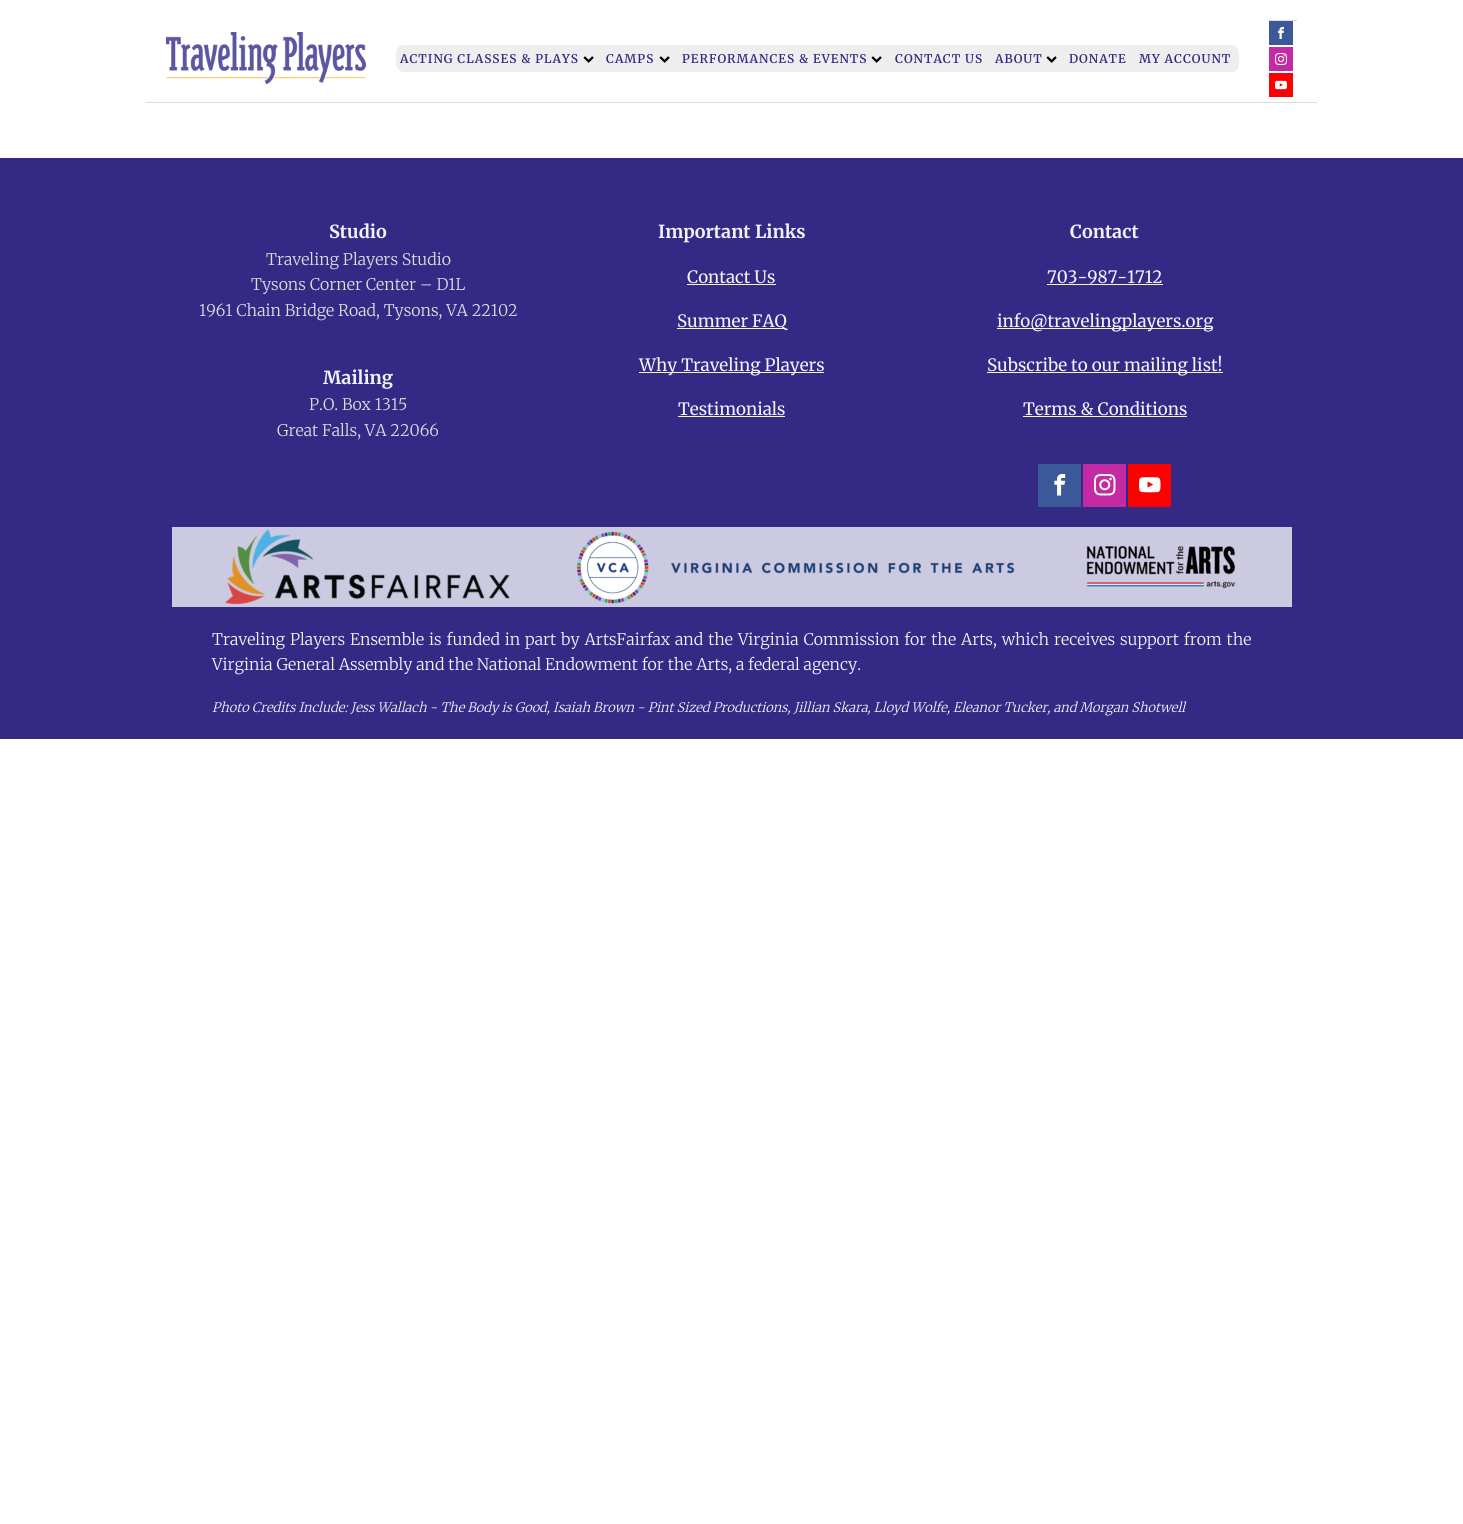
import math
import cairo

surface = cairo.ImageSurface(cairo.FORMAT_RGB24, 1463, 1524)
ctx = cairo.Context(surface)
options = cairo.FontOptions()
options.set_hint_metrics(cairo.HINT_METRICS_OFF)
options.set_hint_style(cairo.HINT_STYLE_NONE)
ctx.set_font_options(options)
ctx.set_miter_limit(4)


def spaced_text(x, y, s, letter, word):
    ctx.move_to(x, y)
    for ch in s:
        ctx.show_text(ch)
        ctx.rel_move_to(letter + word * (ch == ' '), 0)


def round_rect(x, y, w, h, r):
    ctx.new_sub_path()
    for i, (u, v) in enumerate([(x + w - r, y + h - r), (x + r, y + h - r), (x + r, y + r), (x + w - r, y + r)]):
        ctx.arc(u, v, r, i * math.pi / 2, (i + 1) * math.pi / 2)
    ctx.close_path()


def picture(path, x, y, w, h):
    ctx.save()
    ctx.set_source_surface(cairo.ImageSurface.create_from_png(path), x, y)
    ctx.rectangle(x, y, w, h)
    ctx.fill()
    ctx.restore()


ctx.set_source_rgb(1, 1, 1)
ctx.paint()
ctx.set_source_rgb(0.867, 0.867, 0.867)
ctx.rectangle(146, 102, 1171, 1)
ctx.fill()
picture("img1.png", 166, 32, 200, 53)
ctx.set_source_rgb(0.933, 0.933, 0.933)
round_rect(396, 45, 843, 27, 8)
ctx.fill()
ctx.select_font_face("Merriweather SemiBold")
ctx.set_font_size(12)
ctx.set_source_rgb(0.204, 0.165, 0.525)
spaced_text(400, 63, "ACTING CLASSES & PLAYS", 1, 0)
picture("img2.png", 583, 56, 11, 7)
spaced_text(606, 63, "CAMPS", 1, 0)
picture("img2.png", 659, 56, 11, 7)
spaced_text(682, 63, "PERFORMANCES & EVENTS", 1, 0)
picture("img2.png", 871, 56, 11, 7)
spaced_text(895, 63, "CONTACT US", 1, 0)
spaced_text(995, 63, "ABOUT", 1, 0)
picture("img2.png", 1046, 56, 11, 7)
spaced_text(1069, 63, "DONATE", 1, 0)
spaced_text(1139, 63, "MY ACCOUNT", 1, 0)
ctx.set_source_rgb(0.867, 0.867, 0.867)
ctx.rectangle(1269, 20, 28, 1)
ctx.fill()
ctx.set_source_rgb(0.231, 0.349, 0.596)
ctx.rectangle(1269, 21, 24, 24)
ctx.fill()
picture("img3.png", 1278, 27, 6, 12)
ctx.set_source_rgb(0.765, 0.165, 0.639)
ctx.rectangle(1269, 47, 24, 24)
ctx.fill()
picture("img4.png", 1275, 53, 12, 12)
ctx.set_source_rgb(1, 0, 0)
ctx.rectangle(1269, 73, 24, 24)
ctx.fill()
picture("img5.png", 1275, 80, 12, 10)
ctx.set_source_rgb(0.204, 0.165, 0.525)
ctx.rectangle(0, 158, 1463, 581)
ctx.fill()
ctx.select_font_face("Merriweather", cairo.FONT_SLANT_NORMAL, cairo.FONT_WEIGHT_BOLD)
ctx.set_font_size(18)
ctx.set_source_rgb(0.937, 0.957, 0.969)
ctx.move_to(329, 238)
ctx.show_text("Studio")
ctx.select_font_face("Merriweather Light")
ctx.set_font_size(16)
ctx.set_source_rgb(0.867, 0.867, 0.867)
ctx.move_to(266, 265)
ctx.show_text("Traveling Players Studio")
ctx.move_to(251, 290)
ctx.show_text("Tysons Corner Center – D1L")
ctx.move_to(199, 316)
ctx.show_text("1961 Chain Bridge Road, Tysons, VA 22102")
ctx.select_font_face("Merriweather", cairo.FONT_SLANT_NORMAL, cairo.FONT_WEIGHT_BOLD)
ctx.set_font_size(18)
ctx.set_source_rgb(0.937, 0.957, 0.969)
ctx.move_to(323, 384)
ctx.show_text("Mailing")
ctx.select_font_face("Merriweather Light")
ctx.set_font_size(16)
ctx.set_source_rgb(0.867, 0.867, 0.867)
ctx.move_to(309, 410)
ctx.show_text("P.O. Box 1315")
ctx.move_to(277, 436)
ctx.show_text("Great Falls, VA 22066")
ctx.select_font_face("Merriweather", cairo.FONT_SLANT_NORMAL, cairo.FONT_WEIGHT_BOLD)
ctx.set_font_size(18)
ctx.set_source_rgb(0.937, 0.957, 0.969)
ctx.move_to(658, 238)
ctx.show_text("Important Links")
ctx.select_font_face("Merriweather")
ctx.set_font_size(17)
ctx.move_to(687, 283)
ctx.show_text("Contact Us")
ctx.set_source_rgb(0.937, 0.957, 0.984)
ctx.rectangle(687, 284, 89, 1)
ctx.fill()
ctx.rectangle(677, 328, 109, 1)
ctx.fill()
ctx.set_source_rgb(0.937, 0.957, 0.969)
ctx.move_to(677, 327)
ctx.show_text("Summer FAQ")
ctx.set_source_rgb(0.937, 0.957, 0.984)
ctx.rectangle(639, 372, 185, 1)
ctx.fill()
ctx.set_source_rgb(0.937, 0.957, 0.969)
ctx.move_to(639, 371)
ctx.show_text("Why Traveling Players")
ctx.move_to(678, 415)
ctx.show_text("Testimonials")
ctx.set_source_rgb(0.937, 0.957, 0.984)
ctx.rectangle(678, 416, 107, 1)
ctx.fill()
ctx.select_font_face("Merriweather", cairo.FONT_SLANT_NORMAL, cairo.FONT_WEIGHT_BOLD)
ctx.set_font_size(18)
ctx.set_source_rgb(0.937, 0.957, 0.969)
ctx.move_to(1070, 238)
ctx.show_text("Contact")
ctx.select_font_face("Merriweather")
ctx.set_font_size(17)
ctx.move_to(1047, 283)
ctx.show_text("703-987-1712")
ctx.set_source_rgb(0.937, 0.957, 0.984)
ctx.rectangle(1047, 284, 116, 1)
ctx.fill()
ctx.rectangle(997, 328, 216, 1)
ctx.fill()
ctx.set_source_rgb(0.937, 0.957, 0.969)
ctx.move_to(997, 327)
ctx.show_text("info@travelingplayers.org")
ctx.set_source_rgb(0.937, 0.957, 0.984)
ctx.rectangle(987, 372, 236, 1)
ctx.fill()
ctx.set_source_rgb(0.937, 0.957, 0.969)
ctx.move_to(987, 371)
ctx.show_text("Subscribe to our mailing list!")
ctx.move_to(1023, 415)
ctx.show_text("Terms & Conditions")
ctx.set_source_rgb(0.937, 0.957, 0.984)
ctx.rectangle(1023, 416, 164, 1)
ctx.fill()
ctx.set_source_rgb(0.231, 0.349, 0.596)
ctx.rectangle(1038, 464, 43, 43)
ctx.fill()
picture("img6.png", 1054, 474, 12, 22)
ctx.set_source_rgb(0.765, 0.165, 0.639)
ctx.rectangle(1083, 464, 43, 43)
ctx.fill()
picture("img7.png", 1094, 474, 22, 22)
ctx.set_source_rgb(1, 0, 0)
ctx.rectangle(1128, 464, 43, 43)
ctx.fill()
picture("img8.png", 1139, 477, 22, 16)
ctx.set_source_rgb(0.8, 0.792, 0.882)
ctx.rectangle(172, 527, 1120, 80)
ctx.fill()
picture("img9.png", 225, 529, 285, 76)
picture("img10.png", 576, 531, 439, 73)
picture("img11.png", 1086, 545, 150, 44)
ctx.select_font_face("Merriweather Light")
ctx.set_font_size(16)
ctx.set_source_rgb(0.937, 0.957, 0.969)
spaced_text(212, 645, "Traveling Players Ensemble is funded in part by ArtsFairfax and the Virginia Commission for the Arts, which receives support from the", 0, 1.1)
ctx.move_to(212, 670)
ctx.show_text("Virginia General Assembly and the National Endowment for the Arts, a federal agency.")
ctx.select_font_face("Merriweather Light", cairo.FONT_SLANT_ITALIC)
ctx.set_font_size(13)
ctx.move_to(212, 712)
ctx.show_text("Photo Credits Include: Jess Wallach - The Body is Good, Isaiah Brown - Pint Sized Productions, Jillian Skara, Lloyd Wolfe, Eleanor Tucker, and Morgan Shotwell")
surface.write_to_png("page.png")
